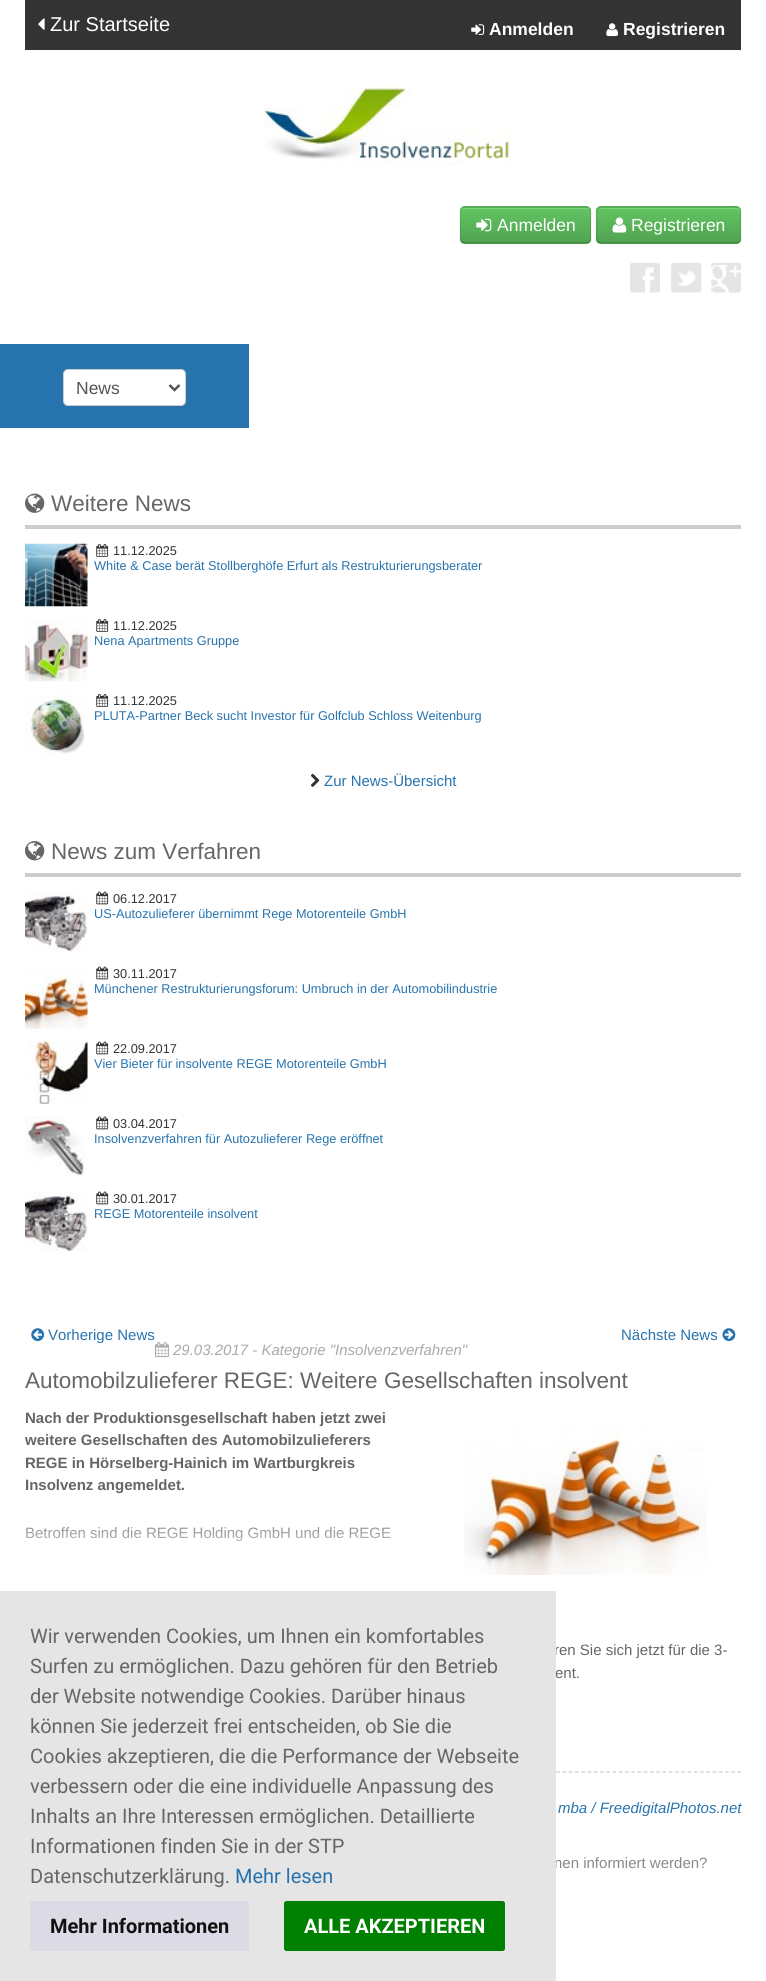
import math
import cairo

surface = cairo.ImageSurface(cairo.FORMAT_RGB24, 766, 1981)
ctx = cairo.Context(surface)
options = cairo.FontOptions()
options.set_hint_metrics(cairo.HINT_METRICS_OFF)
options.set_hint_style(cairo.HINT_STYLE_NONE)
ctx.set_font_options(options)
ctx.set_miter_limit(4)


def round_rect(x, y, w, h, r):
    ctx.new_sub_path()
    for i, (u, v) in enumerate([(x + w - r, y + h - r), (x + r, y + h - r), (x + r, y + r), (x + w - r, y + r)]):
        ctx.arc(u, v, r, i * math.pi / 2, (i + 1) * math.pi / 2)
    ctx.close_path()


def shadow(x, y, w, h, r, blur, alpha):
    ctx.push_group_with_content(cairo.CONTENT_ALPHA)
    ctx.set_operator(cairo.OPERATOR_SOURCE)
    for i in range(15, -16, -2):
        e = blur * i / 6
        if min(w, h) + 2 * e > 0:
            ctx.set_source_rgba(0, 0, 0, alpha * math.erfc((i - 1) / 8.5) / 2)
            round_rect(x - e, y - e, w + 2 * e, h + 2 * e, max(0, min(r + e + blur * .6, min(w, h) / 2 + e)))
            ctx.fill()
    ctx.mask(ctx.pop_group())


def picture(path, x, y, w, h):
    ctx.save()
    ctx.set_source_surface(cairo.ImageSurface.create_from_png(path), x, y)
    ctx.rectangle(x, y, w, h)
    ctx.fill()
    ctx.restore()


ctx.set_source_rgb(1, 1, 1)
ctx.paint()
ctx.set_source_rgb(0.2, 0.2, 0.2)
ctx.rectangle(25, 0, 716, 50)
ctx.fill()
picture("img1.png", 38, 18, 7, 12)
ctx.select_font_face("Liberation Sans")
ctx.set_font_size(20)
ctx.set_source_rgb(1, 1, 1)
ctx.move_to(50, 31)
ctx.show_text("Zur Startseite")
picture("img2.png", 471, 24, 14, 11)
ctx.select_font_face("Liberation Sans", cairo.FONT_SLANT_NORMAL, cairo.FONT_WEIGHT_BOLD)
ctx.set_font_size(17.5)
ctx.move_to(489, 35)
ctx.show_text("Anmelden")
picture("img3.png", 606, 23, 12, 14)
ctx.move_to(623, 35)
ctx.show_text("Registrieren")
picture("img4.png", 263, 87, 250, 78)
ctx.set_source_rgb(0, 0, 0)
shadow(460, 208, 131, 37, 5, 1, 0.05)
ctx.set_source_rgb(0.357, 0.718, 0.357)
round_rect(460, 206, 131, 38, 5)
ctx.fill()
ctx.save()
round_rect(460, 206, 131, 38, 5)
ctx.clip()
gradient = cairo.LinearGradient(526, 208, 526, 243)
gradient.add_color_stop_rgba(0, 0.384, 0.769, 0.384, 1)
gradient.add_color_stop_rgba(1, 0.318, 0.639, 0.318, 1)
ctx.set_source(gradient)
ctx.rectangle(460, 208, 131, 35)
ctx.fill()
ctx.restore()
ctx.set_source_rgb(0.506, 0.816, 0.506)
ctx.new_path()
ctx.move_to(465, 209)
ctx.line_to(586, 209)
ctx.curve_to(588, 209, 590, 210, 590, 212)
ctx.curve_to(590, 210, 588, 208, 586, 208)
ctx.line_to(465, 208)
ctx.curve_to(463, 208, 461, 210, 461, 212)
ctx.curve_to(461, 210, 463, 209, 465, 209)
ctx.close_path()
ctx.fill()
ctx.new_path()
ctx.move_to(589.5, 242)
ctx.line_to(586, 243)
ctx.line_to(464.5, 243)
ctx.line_to(462, 242)
ctx.set_source_rgba(0, 0, 0, 0.25)
ctx.set_line_width(1.2)
ctx.stroke()
ctx.new_path()
ctx.move_to(462, 242)
ctx.curve_to(459, 239, 460.5, 232.5, 460.5, 229.5)
ctx.curve_to(460.5, 202.5, 456, 207, 485, 207)
ctx.line_to(566, 207)
ctx.curve_to(595, 207, 590.5, 202.5, 590.5, 229.5)
ctx.curve_to(590.5, 232.5, 592, 239, 589.5, 242)
ctx.set_source_rgba(0, 0, 0, 0.1)
ctx.stroke()
picture("img5.png", 476, 218, 16, 14)
ctx.select_font_face("Liberation Sans")
ctx.set_source_rgb(1, 1, 1)
ctx.move_to(497, 231)
ctx.show_text("Anmelden")
ctx.set_source_rgb(0, 0, 0)
shadow(596, 208, 145, 37, 5, 1, 0.05)
ctx.set_source_rgb(0.357, 0.718, 0.357)
round_rect(596, 206, 145, 38, 5)
ctx.fill()
ctx.save()
round_rect(596, 206, 145, 38, 5)
ctx.clip()
gradient = cairo.LinearGradient(669, 208, 669, 243)
gradient.add_color_stop_rgba(0, 0.384, 0.769, 0.384, 1)
gradient.add_color_stop_rgba(1, 0.318, 0.639, 0.318, 1)
ctx.set_source(gradient)
ctx.rectangle(596, 208, 145, 35)
ctx.fill()
ctx.restore()
ctx.set_source_rgb(0.506, 0.816, 0.506)
ctx.new_path()
ctx.move_to(601, 209)
ctx.line_to(736, 209)
ctx.curve_to(738, 209, 740, 210, 740, 212)
ctx.line_to(740, 210)
ctx.curve_to(739, 209, 738, 208, 736, 208)
ctx.line_to(601, 208)
ctx.line_to(599, 210)
ctx.close_path()
ctx.fill()
ctx.new_path()
ctx.move_to(739.5, 242)
ctx.line_to(736.5, 243)
ctx.line_to(624, 243)
ctx.line_to(601, 243)
ctx.line_to(598, 242)
ctx.set_source_rgba(0, 0, 0, 0.25)
ctx.stroke()
ctx.new_path()
ctx.move_to(598, 242)
ctx.curve_to(595.5, 239, 597, 232.5, 597, 229.5)
ctx.curve_to(597, 201.5, 592.5, 207, 624, 207)
ctx.line_to(714, 207)
ctx.curve_to(745, 207, 740.5, 201.5, 740.5, 229.5)
ctx.curve_to(740.5, 232.5, 742, 239, 739.5, 242)
ctx.set_source_rgba(0, 0, 0, 0.1)
ctx.stroke()
picture("img6.png", 612, 217, 15, 16)
ctx.set_source_rgb(1, 1, 1)
ctx.move_to(631, 231)
ctx.show_text("Registrieren")
picture("img7.png", 630, 262, 30, 31)
picture("img8.png", 671, 262, 31, 31)
picture("img9.png", 711, 262, 30, 31)
ctx.set_source_rgb(0.153, 0.451, 0.682)
ctx.rectangle(0, 344, 249, 84)
ctx.fill()
ctx.set_source_rgb(1, 1, 1)
round_rect(63.5, 369.5, 122, 36, 4.5)
ctx.fill_preserve()
ctx.set_source_rgb(0.8, 0.8, 0.8)
ctx.set_line_width(1)
ctx.stroke()
ctx.new_path()
ctx.move_to(169.5, 385)
ctx.line_to(174.5, 390)
ctx.line_to(179.5, 385)
ctx.set_source_rgb(0.333, 0.333, 0.333)
ctx.set_line_width(2.5)
ctx.stroke()
ctx.move_to(76, 394)
ctx.show_text("News")
ctx.set_source_rgb(0.8, 0.8, 0.8)
ctx.rectangle(25, 525, 716, 4)
ctx.fill()
picture("img10.png", 25, 493, 20, 20)
ctx.set_font_size(22.5)
ctx.set_source_rgb(0.4, 0.4, 0.4)
ctx.move_to(51, 511)
ctx.show_text("Weitere News")
picture("img11.png", 25, 543, 63, 64)
picture("img12.png", 96, 544, 13, 13)
ctx.set_font_size(12.75)
ctx.set_source_rgb(0.2, 0.2, 0.2)
ctx.move_to(113, 555)
ctx.show_text("11.12.2025")
ctx.set_source_rgb(0.153, 0.451, 0.682)
ctx.move_to(94, 570)
ctx.show_text("White & Case berät Stollberghöfe Erfurt als Restrukturierungsberater")
picture("img13.png", 25, 619, 63, 63)
picture("img12.png", 96, 619, 13, 13)
ctx.set_source_rgb(0.2, 0.2, 0.2)
ctx.move_to(113, 630)
ctx.show_text("11.12.2025")
ctx.set_source_rgb(0.153, 0.451, 0.682)
ctx.move_to(94, 645)
ctx.show_text("Nena Apartments Gruppe")
picture("img14.png", 25, 694, 60, 60)
picture("img12.png", 96, 694, 13, 13)
ctx.set_source_rgb(0.2, 0.2, 0.2)
ctx.move_to(113, 705)
ctx.show_text("11.12.2025")
ctx.set_source_rgb(0.153, 0.451, 0.682)
ctx.move_to(94, 720)
ctx.show_text("PLUTA-Partner Beck sucht Investor für Golfclub Schloss Weitenburg")
picture("img15.png", 311, 773, 9, 14)
ctx.set_font_size(15)
ctx.move_to(324, 786)
ctx.show_text("Zur News-Übersicht")
ctx.set_source_rgb(0.8, 0.8, 0.8)
ctx.rectangle(25, 873, 716, 4)
ctx.fill()
picture("img16.png", 25, 841, 20, 20)
ctx.set_font_size(22.5)
ctx.set_source_rgb(0.4, 0.4, 0.4)
ctx.move_to(51, 859)
ctx.show_text("News zum Verfahren")
picture("img17.png", 25, 891, 63, 61)
picture("img18.png", 96, 891, 13, 14)
ctx.set_font_size(12.75)
ctx.set_source_rgb(0.2, 0.2, 0.2)
ctx.move_to(113, 903)
ctx.show_text("06.12.2017")
ctx.set_source_rgb(0.153, 0.451, 0.682)
ctx.move_to(94, 918)
ctx.show_text("US-Autozulieferer übernimmt Rege Motorenteile GmbH")
picture("img19.png", 25, 966, 63, 63)
picture("img18.png", 96, 966, 13, 14)
ctx.set_source_rgb(0.2, 0.2, 0.2)
ctx.move_to(113, 978)
ctx.show_text("30.11.2017")
ctx.set_source_rgb(0.153, 0.451, 0.682)
ctx.move_to(94, 993)
ctx.show_text("Münchener Restrukturierungsforum: Umbruch in der Automobilindustrie")
picture("img20.png", 27, 1041, 61, 63)
picture("img18.png", 96, 1041, 13, 14)
ctx.set_source_rgb(0.2, 0.2, 0.2)
ctx.move_to(113, 1053)
ctx.show_text("22.09.2017")
ctx.set_source_rgb(0.153, 0.451, 0.682)
ctx.move_to(94, 1068)
ctx.show_text("Vier Bieter für insolvente REGE Motorenteile GmbH")
picture("img21.png", 25, 1116, 60, 60)
picture("img18.png", 96, 1116, 13, 14)
ctx.set_source_rgb(0.2, 0.2, 0.2)
ctx.move_to(113, 1128)
ctx.show_text("03.04.2017")
ctx.set_source_rgb(0.153, 0.451, 0.682)
ctx.move_to(94, 1143)
ctx.show_text("Insolvenzverfahren für Autozulieferer Rege eröffnet")
picture("img17.png", 25, 1191, 63, 61)
picture("img18.png", 96, 1191, 13, 14)
ctx.set_source_rgb(0.2, 0.2, 0.2)
ctx.move_to(113, 1203)
ctx.show_text("30.01.2017")
ctx.set_source_rgb(0.153, 0.451, 0.682)
ctx.move_to(94, 1218)
ctx.show_text("REGE Motorenteile insolvent")
picture("img22.png", 31, 1328, 14, 14)
ctx.set_font_size(15)
ctx.move_to(48, 1340)
ctx.show_text("Vorherige News")
ctx.move_to(621, 1340)
ctx.show_text("Nächste News")
picture("img23.png", 722, 1328, 14, 14)
picture("img24.png", 155, 1342, 14, 16)
ctx.select_font_face("Liberation Sans", cairo.FONT_SLANT_ITALIC)
ctx.set_source_rgb(0.667, 0.667, 0.667)
ctx.move_to(173, 1355)
ctx.show_text("29.03.2017 - Kategorie \"Insolvenzverfahren\"")
ctx.select_font_face("Liberation Sans")
ctx.set_font_size(22.5)
ctx.set_source_rgb(0.4, 0.4, 0.4)
ctx.move_to(25, 1388)
ctx.show_text("Automobilzulieferer REGE: Weitere Gesellschaften insolvent")
ctx.select_font_face("Liberation Sans", cairo.FONT_SLANT_NORMAL, cairo.FONT_WEIGHT_BOLD)
ctx.set_font_size(15)
ctx.move_to(25, 1423)
ctx.show_text("Nach der Produktionsgesellschaft haben jetzt zwei")
ctx.move_to(25, 1445)
ctx.show_text("weitere Gesellschaften des Automobilzulieferers")
ctx.move_to(25, 1468)
ctx.show_text("REGE in Hörselberg-Hainich im Wartburgkreis")
ctx.move_to(25, 1490)
ctx.show_text("Insolvenz angemeldet.")
picture("img25.png", 464, 1425, 243, 150)
ctx.select_font_face("Liberation Sans")
ctx.move_to(25, 1538)
ctx.show_text("Betroffen sind die REGE Holding GmbH und die REGE")
gradient = cairo.LinearGradient(221, 1509, 221, 1571)
gradient.add_color_stop_rgba(0, 1, 1, 1, 0)
gradient.add_color_stop_rgba(1, 1, 1, 1, 1)
ctx.set_source(gradient)
ctx.rectangle(26, 1527, 365, 15)
ctx.fill()
ctx.set_source_rgb(0.4, 0.4, 0.4)
ctx.move_to(554, 1655)
ctx.show_text("ren Sie sich jetzt für die 3-")
ctx.move_to(555, 1678)
ctx.show_text("ent.")
ctx.new_path()
ctx.move_to(25, 1772)
ctx.line_to(741, 1772)
ctx.set_source_rgb(0.8, 0.8, 0.8)
ctx.set_line_width(1.2)
ctx.set_dash([3.75, 2.5])
ctx.stroke()
ctx.select_font_face("Liberation Sans", cairo.FONT_SLANT_ITALIC)
ctx.set_source_rgb(0.153, 0.451, 0.682)
ctx.move_to(558, 1813)
ctx.show_text("mba / FreedigitalPhotos.net")
ctx.select_font_face("Liberation Sans")
ctx.set_source_rgb(0.537, 0.537, 0.537)
ctx.move_to(554, 1868)
ctx.show_text("nen informiert werden?")
ctx.set_source_rgb(0.898, 0.898, 0.898)
ctx.rectangle(0, 1591, 556, 390)
ctx.fill()
ctx.select_font_face("Roboto")
ctx.set_font_size(20)
ctx.set_source_rgb(0.4, 0.4, 0.4)
ctx.move_to(30, 1643)
ctx.show_text("Wir verwenden Cookies, um Ihnen ein komfortables")
ctx.move_to(30, 1673)
ctx.show_text("Surfen zu ermöglichen. Dazu gehören für den Betrieb")
ctx.move_to(30, 1703)
ctx.show_text("der Website notwendige Cookies. Darüber hinaus")
ctx.move_to(30, 1733)
ctx.show_text("können Sie jederzeit frei entscheiden, ob Sie die")
ctx.move_to(30, 1763)
ctx.show_text("Cookies akzeptieren, die die Performance der Webseite")
ctx.move_to(30, 1793)
ctx.show_text("verbessern oder die eine individuelle Anpassung des")
ctx.move_to(30, 1823)
ctx.show_text("Inhalts an Ihre Interessen ermöglichen. Detaillierte")
ctx.move_to(30, 1853)
ctx.show_text("Informationen finden Sie in der STP")
ctx.move_to(30, 1883)
ctx.show_text("Datenschutzerklärung.")
ctx.set_source_rgb(0.153, 0.451, 0.682)
ctx.move_to(235, 1883)
ctx.show_text("Mehr lesen")
ctx.set_source_rgb(0.863, 0.855, 0.898)
round_rect(30, 1901, 219, 50, 2.5)
ctx.fill()
ctx.select_font_face("Roboto", cairo.FONT_SLANT_NORMAL, cairo.FONT_WEIGHT_BOLD)
ctx.set_source_rgb(0.067, 0.067, 0.067)
ctx.move_to(50, 1933)
ctx.show_text("Mehr Informationen")
ctx.set_source_rgb(0, 0.502, 0)
round_rect(284, 1901, 221, 50, 2.5)
ctx.fill()
ctx.set_source_rgb(1, 1, 1)
ctx.move_to(304, 1933)
ctx.show_text("ALLE AKZEPTIEREN")
surface.write_to_png("page.png")
